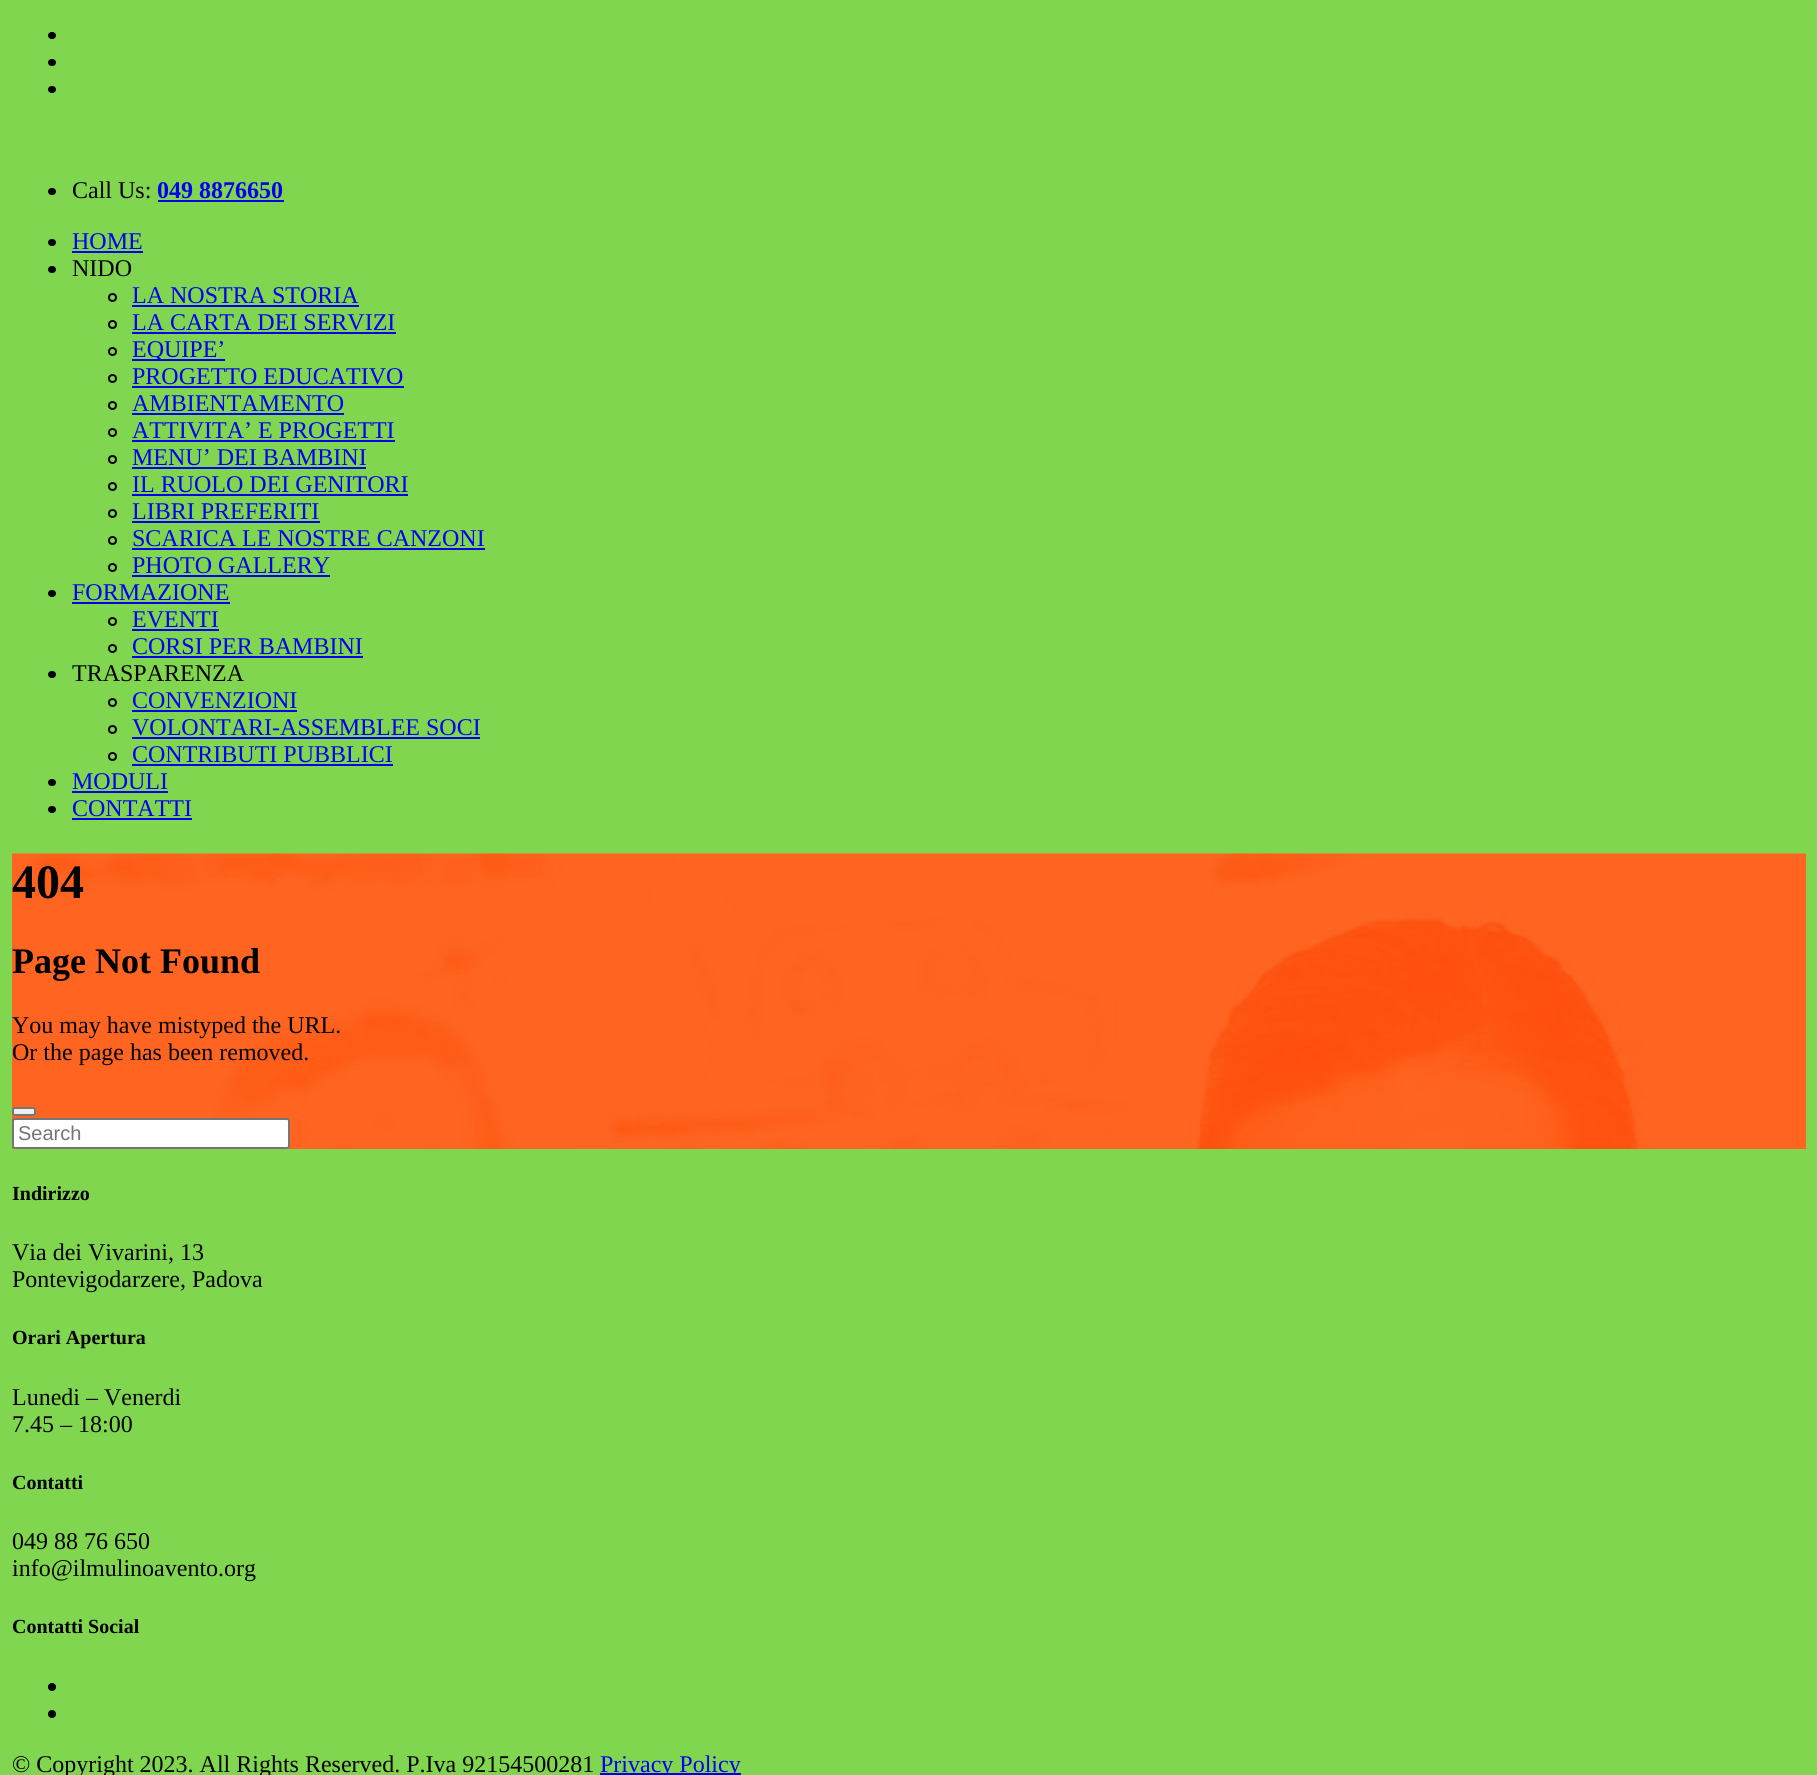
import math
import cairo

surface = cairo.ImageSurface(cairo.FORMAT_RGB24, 1817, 1775)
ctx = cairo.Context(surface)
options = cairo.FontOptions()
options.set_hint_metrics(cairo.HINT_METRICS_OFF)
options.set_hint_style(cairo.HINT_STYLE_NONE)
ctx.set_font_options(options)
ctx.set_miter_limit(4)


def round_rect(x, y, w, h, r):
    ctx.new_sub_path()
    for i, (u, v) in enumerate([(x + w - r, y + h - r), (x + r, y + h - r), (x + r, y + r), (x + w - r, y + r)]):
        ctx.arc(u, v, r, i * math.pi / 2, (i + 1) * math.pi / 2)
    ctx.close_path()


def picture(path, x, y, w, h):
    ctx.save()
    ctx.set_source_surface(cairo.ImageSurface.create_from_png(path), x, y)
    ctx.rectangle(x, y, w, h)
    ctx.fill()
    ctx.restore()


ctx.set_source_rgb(0.502, 0.839, 0.31)
ctx.paint()
ctx.set_source_rgb(0, 0, 0)
round_rect(48, 32, 8, 7, 3.5)
ctx.fill()
round_rect(48, 59, 8, 7, 3.5)
ctx.fill()
round_rect(48, 86, 8, 7, 3.5)
ctx.fill()
round_rect(48, 188, 8, 7, 3.5)
ctx.fill()
ctx.select_font_face("Liberation Serif")
ctx.set_font_size(24)
ctx.move_to(72, 198)
ctx.show_text("Call Us:")
ctx.select_font_face("Liberation Serif", cairo.FONT_SLANT_NORMAL, cairo.FONT_WEIGHT_BOLD)
ctx.set_source_rgb(0, 0, 0.933)
ctx.move_to(157, 198)
ctx.show_text("049 8876650")
ctx.rectangle(158, 200, 126, 2)
ctx.fill()
ctx.set_source_rgb(0, 0, 0)
round_rect(48, 239, 8, 7, 3.5)
ctx.fill()
ctx.select_font_face("Liberation Serif")
ctx.set_source_rgb(0, 0, 0.933)
ctx.move_to(72, 249)
ctx.show_text("HOME")
ctx.rectangle(72, 251, 71, 2)
ctx.fill()
ctx.set_source_rgb(0, 0, 0)
round_rect(48, 266, 8, 7, 3.5)
ctx.fill()
ctx.move_to(72, 276)
ctx.show_text("NIDO")
ctx.new_path()
ctx.arc(112.5, 297.5, 3.5, 0, 2 * math.pi)
ctx.stroke()
ctx.set_source_rgb(0, 0, 0.933)
ctx.move_to(132, 303)
ctx.show_text("LA NOSTRA STORIA")
ctx.rectangle(132, 305, 227, 2)
ctx.fill()
ctx.arc(112.5, 324.5, 3.5, 0, 2 * math.pi)
ctx.set_source_rgb(0, 0, 0)
ctx.stroke()
ctx.set_source_rgb(0, 0, 0.933)
ctx.move_to(132, 330)
ctx.show_text("LA CARTA DEI SERVIZI")
ctx.rectangle(132, 332, 264, 2)
ctx.fill()
ctx.arc(112.5, 351.5, 3.5, 0, 2 * math.pi)
ctx.set_source_rgb(0, 0, 0)
ctx.stroke()
ctx.set_source_rgb(0, 0, 0.933)
ctx.rectangle(132, 359, 93, 2)
ctx.fill()
ctx.move_to(132, 357)
ctx.show_text("EQUIPE’")
ctx.new_path()
ctx.arc(112.5, 378.5, 3.5, 0, 2 * math.pi)
ctx.set_source_rgb(0, 0, 0)
ctx.stroke()
ctx.set_source_rgb(0, 0, 0.933)
ctx.move_to(132, 384)
ctx.show_text("PROGETTO EDUCATIVO")
ctx.rectangle(132, 386, 272, 2)
ctx.fill()
ctx.arc(112.5, 405.5, 3.5, 0, 2 * math.pi)
ctx.set_source_rgb(0, 0, 0)
ctx.stroke()
ctx.set_source_rgb(0, 0, 0.933)
ctx.move_to(132, 411)
ctx.show_text("AMBIENTAMENTO")
ctx.rectangle(132, 413, 212, 2)
ctx.fill()
ctx.arc(112.5, 432.5, 3.5, 0, 2 * math.pi)
ctx.set_source_rgb(0, 0, 0)
ctx.stroke()
ctx.set_source_rgb(0, 0, 0.933)
ctx.move_to(132, 438)
ctx.show_text("ATTIVITA’ E PROGETTI")
ctx.rectangle(132, 440, 263, 2)
ctx.fill()
ctx.arc(112.5, 459.5, 3.5, 0, 2 * math.pi)
ctx.set_source_rgb(0, 0, 0)
ctx.stroke()
ctx.set_source_rgb(0, 0, 0.933)
ctx.move_to(132, 465)
ctx.show_text("MENU’ DEI BAMBINI")
ctx.rectangle(132, 467, 234, 2)
ctx.fill()
ctx.arc(112.5, 486.5, 3.5, 0, 2 * math.pi)
ctx.set_source_rgb(0, 0, 0)
ctx.stroke()
ctx.set_source_rgb(0, 0, 0.933)
ctx.move_to(132, 492)
ctx.show_text("IL RUOLO DEI GENITORI")
ctx.rectangle(132, 494, 276, 2)
ctx.fill()
ctx.arc(112.5, 513.5, 3.5, 0, 2 * math.pi)
ctx.set_source_rgb(0, 0, 0)
ctx.stroke()
ctx.set_source_rgb(0, 0, 0.933)
ctx.move_to(132, 519)
ctx.show_text("LIBRI PREFERITI")
ctx.rectangle(132, 521, 188, 2)
ctx.fill()
ctx.arc(112.5, 540.5, 3.5, 0, 2 * math.pi)
ctx.set_source_rgb(0, 0, 0)
ctx.stroke()
ctx.set_source_rgb(0, 0, 0.933)
ctx.move_to(132, 546)
ctx.show_text("SCARICA LE NOSTRE CANZONI")
ctx.rectangle(132, 548, 353, 2)
ctx.fill()
ctx.arc(112.5, 567.5, 3.5, 0, 2 * math.pi)
ctx.set_source_rgb(0, 0, 0)
ctx.stroke()
ctx.set_source_rgb(0, 0, 0.933)
ctx.move_to(132, 573)
ctx.show_text("PHOTO GALLERY")
ctx.rectangle(132, 575, 198, 2)
ctx.fill()
ctx.set_source_rgb(0, 0, 0)
round_rect(48, 590, 8, 7, 3.5)
ctx.fill()
ctx.set_source_rgb(0, 0, 0.933)
ctx.move_to(72, 600)
ctx.show_text("FORMAZIONE")
ctx.rectangle(72, 602, 158, 2)
ctx.fill()
ctx.arc(112.5, 621.5, 3.5, 0, 2 * math.pi)
ctx.set_source_rgb(0, 0, 0)
ctx.stroke()
ctx.set_source_rgb(0, 0, 0.933)
ctx.move_to(132, 627)
ctx.show_text("EVENTI")
ctx.rectangle(132, 629, 87, 2)
ctx.fill()
ctx.arc(112.5, 648.5, 3.5, 0, 2 * math.pi)
ctx.set_source_rgb(0, 0, 0)
ctx.stroke()
ctx.set_source_rgb(0, 0, 0.933)
ctx.move_to(132, 654)
ctx.show_text("CORSI PER BAMBINI")
ctx.rectangle(132, 656, 231, 2)
ctx.fill()
ctx.set_source_rgb(0, 0, 0)
round_rect(48, 671, 8, 7, 3.5)
ctx.fill()
ctx.move_to(72, 681)
ctx.show_text("TRASPARENZA")
ctx.new_path()
ctx.arc(112.5, 702.5, 3.5, 0, 2 * math.pi)
ctx.stroke()
ctx.set_source_rgb(0, 0, 0.933)
ctx.move_to(132, 708)
ctx.show_text("CONVENZIONI")
ctx.rectangle(132, 710, 165, 2)
ctx.fill()
ctx.arc(112.5, 729.5, 3.5, 0, 2 * math.pi)
ctx.set_source_rgb(0, 0, 0)
ctx.stroke()
ctx.set_source_rgb(0, 0, 0.933)
ctx.move_to(132, 735)
ctx.show_text("VOLONTARI-ASSEMBLEE SOCI")
ctx.rectangle(132, 737, 348, 2)
ctx.fill()
ctx.arc(112.5, 756.5, 3.5, 0, 2 * math.pi)
ctx.set_source_rgb(0, 0, 0)
ctx.stroke()
ctx.set_source_rgb(0, 0, 0.933)
ctx.move_to(132, 762)
ctx.show_text("CONTRIBUTI PUBBLICI")
ctx.rectangle(132, 764, 261, 2)
ctx.fill()
ctx.set_source_rgb(0, 0, 0)
round_rect(48, 779, 8, 7, 3.5)
ctx.fill()
ctx.set_source_rgb(0, 0, 0.933)
ctx.move_to(72, 789)
ctx.show_text("MODULI")
ctx.rectangle(72, 791, 96, 2)
ctx.fill()
ctx.set_source_rgb(0, 0, 0)
round_rect(48, 806, 8, 7, 3.5)
ctx.fill()
ctx.set_source_rgb(0, 0, 0.933)
ctx.move_to(72, 816)
ctx.show_text("CONTATTI")
ctx.rectangle(72, 818, 120, 2)
ctx.fill()
picture("img1.png", 12, 853, 1794, 296)
ctx.select_font_face("Liberation Serif", cairo.FONT_SLANT_NORMAL, cairo.FONT_WEIGHT_BOLD)
ctx.set_font_size(48)
ctx.set_source_rgb(0, 0, 0)
ctx.move_to(12, 898)
ctx.show_text("404")
ctx.set_font_size(36)
ctx.move_to(12, 973)
ctx.show_text("Page Not Found")
ctx.select_font_face("Liberation Serif")
ctx.set_font_size(24)
ctx.move_to(12, 1033)
ctx.show_text("You may have mistyped the URL.")
ctx.move_to(12, 1060)
ctx.show_text("Or the page has been removed.")
ctx.set_source_rgb(0.937, 0.937, 0.937)
round_rect(13, 1108, 22, 7, 2)
ctx.fill_preserve()
ctx.set_source_rgb(0.463, 0.463, 0.463)
ctx.stroke()
ctx.set_source_rgb(1, 1, 1)
round_rect(13, 1119, 276, 29, 2)
ctx.fill_preserve()
ctx.set_source_rgb(0.463, 0.463, 0.463)
ctx.stroke()
ctx.select_font_face("Liberation Sans")
ctx.set_font_size(20)
ctx.set_source_rgb(0.459, 0.459, 0.459)
ctx.move_to(18, 1140)
ctx.show_text("Search")
ctx.select_font_face("Liberation Serif", cairo.FONT_SLANT_NORMAL, cairo.FONT_WEIGHT_BOLD)
ctx.set_source_rgb(0, 0, 0)
ctx.move_to(12, 1200)
ctx.show_text("Indirizzo")
ctx.select_font_face("Liberation Serif")
ctx.set_font_size(24)
ctx.move_to(12, 1260)
ctx.show_text("Via dei Vivarini, 13")
ctx.move_to(12, 1287)
ctx.show_text("Pontevigodarzere, Padova")
ctx.select_font_face("Liberation Serif", cairo.FONT_SLANT_NORMAL, cairo.FONT_WEIGHT_BOLD)
ctx.set_font_size(20)
ctx.move_to(12, 1344)
ctx.show_text("Orari Apertura")
ctx.select_font_face("Liberation Serif")
ctx.set_font_size(24)
ctx.move_to(12, 1405)
ctx.show_text("Lunedi – Venerdi")
ctx.move_to(12, 1432)
ctx.show_text("7.45 – 18:00")
ctx.select_font_face("Liberation Serif", cairo.FONT_SLANT_NORMAL, cairo.FONT_WEIGHT_BOLD)
ctx.set_font_size(20)
ctx.move_to(12, 1489)
ctx.show_text("Contatti")
ctx.select_font_face("Liberation Serif")
ctx.set_font_size(24)
ctx.move_to(12, 1549)
ctx.show_text("049 88 76 650")
ctx.move_to(12, 1576)
ctx.show_text("info@ilmulinoavento.org")
ctx.select_font_face("Liberation Serif", cairo.FONT_SLANT_NORMAL, cairo.FONT_WEIGHT_BOLD)
ctx.set_font_size(20)
ctx.move_to(12, 1633)
ctx.show_text("Contatti Social")
ctx.new_path()
ctx.arc(52, 1687, 4, 0, 2 * math.pi)
ctx.fill()
ctx.arc(52, 1714, 4, 0, 2 * math.pi)
ctx.fill()
ctx.select_font_face("Liberation Serif")
ctx.set_font_size(24)
ctx.move_to(12, 1772)
ctx.show_text("© Copyright 2023. All Rights Reserved. P.Iva 92154500281")
ctx.set_source_rgb(0, 0, 0.933)
ctx.rectangle(600, 1773, 141, 2)
ctx.fill()
ctx.move_to(600, 1772)
ctx.show_text("Privacy Policy")
surface.write_to_png("page.png")
